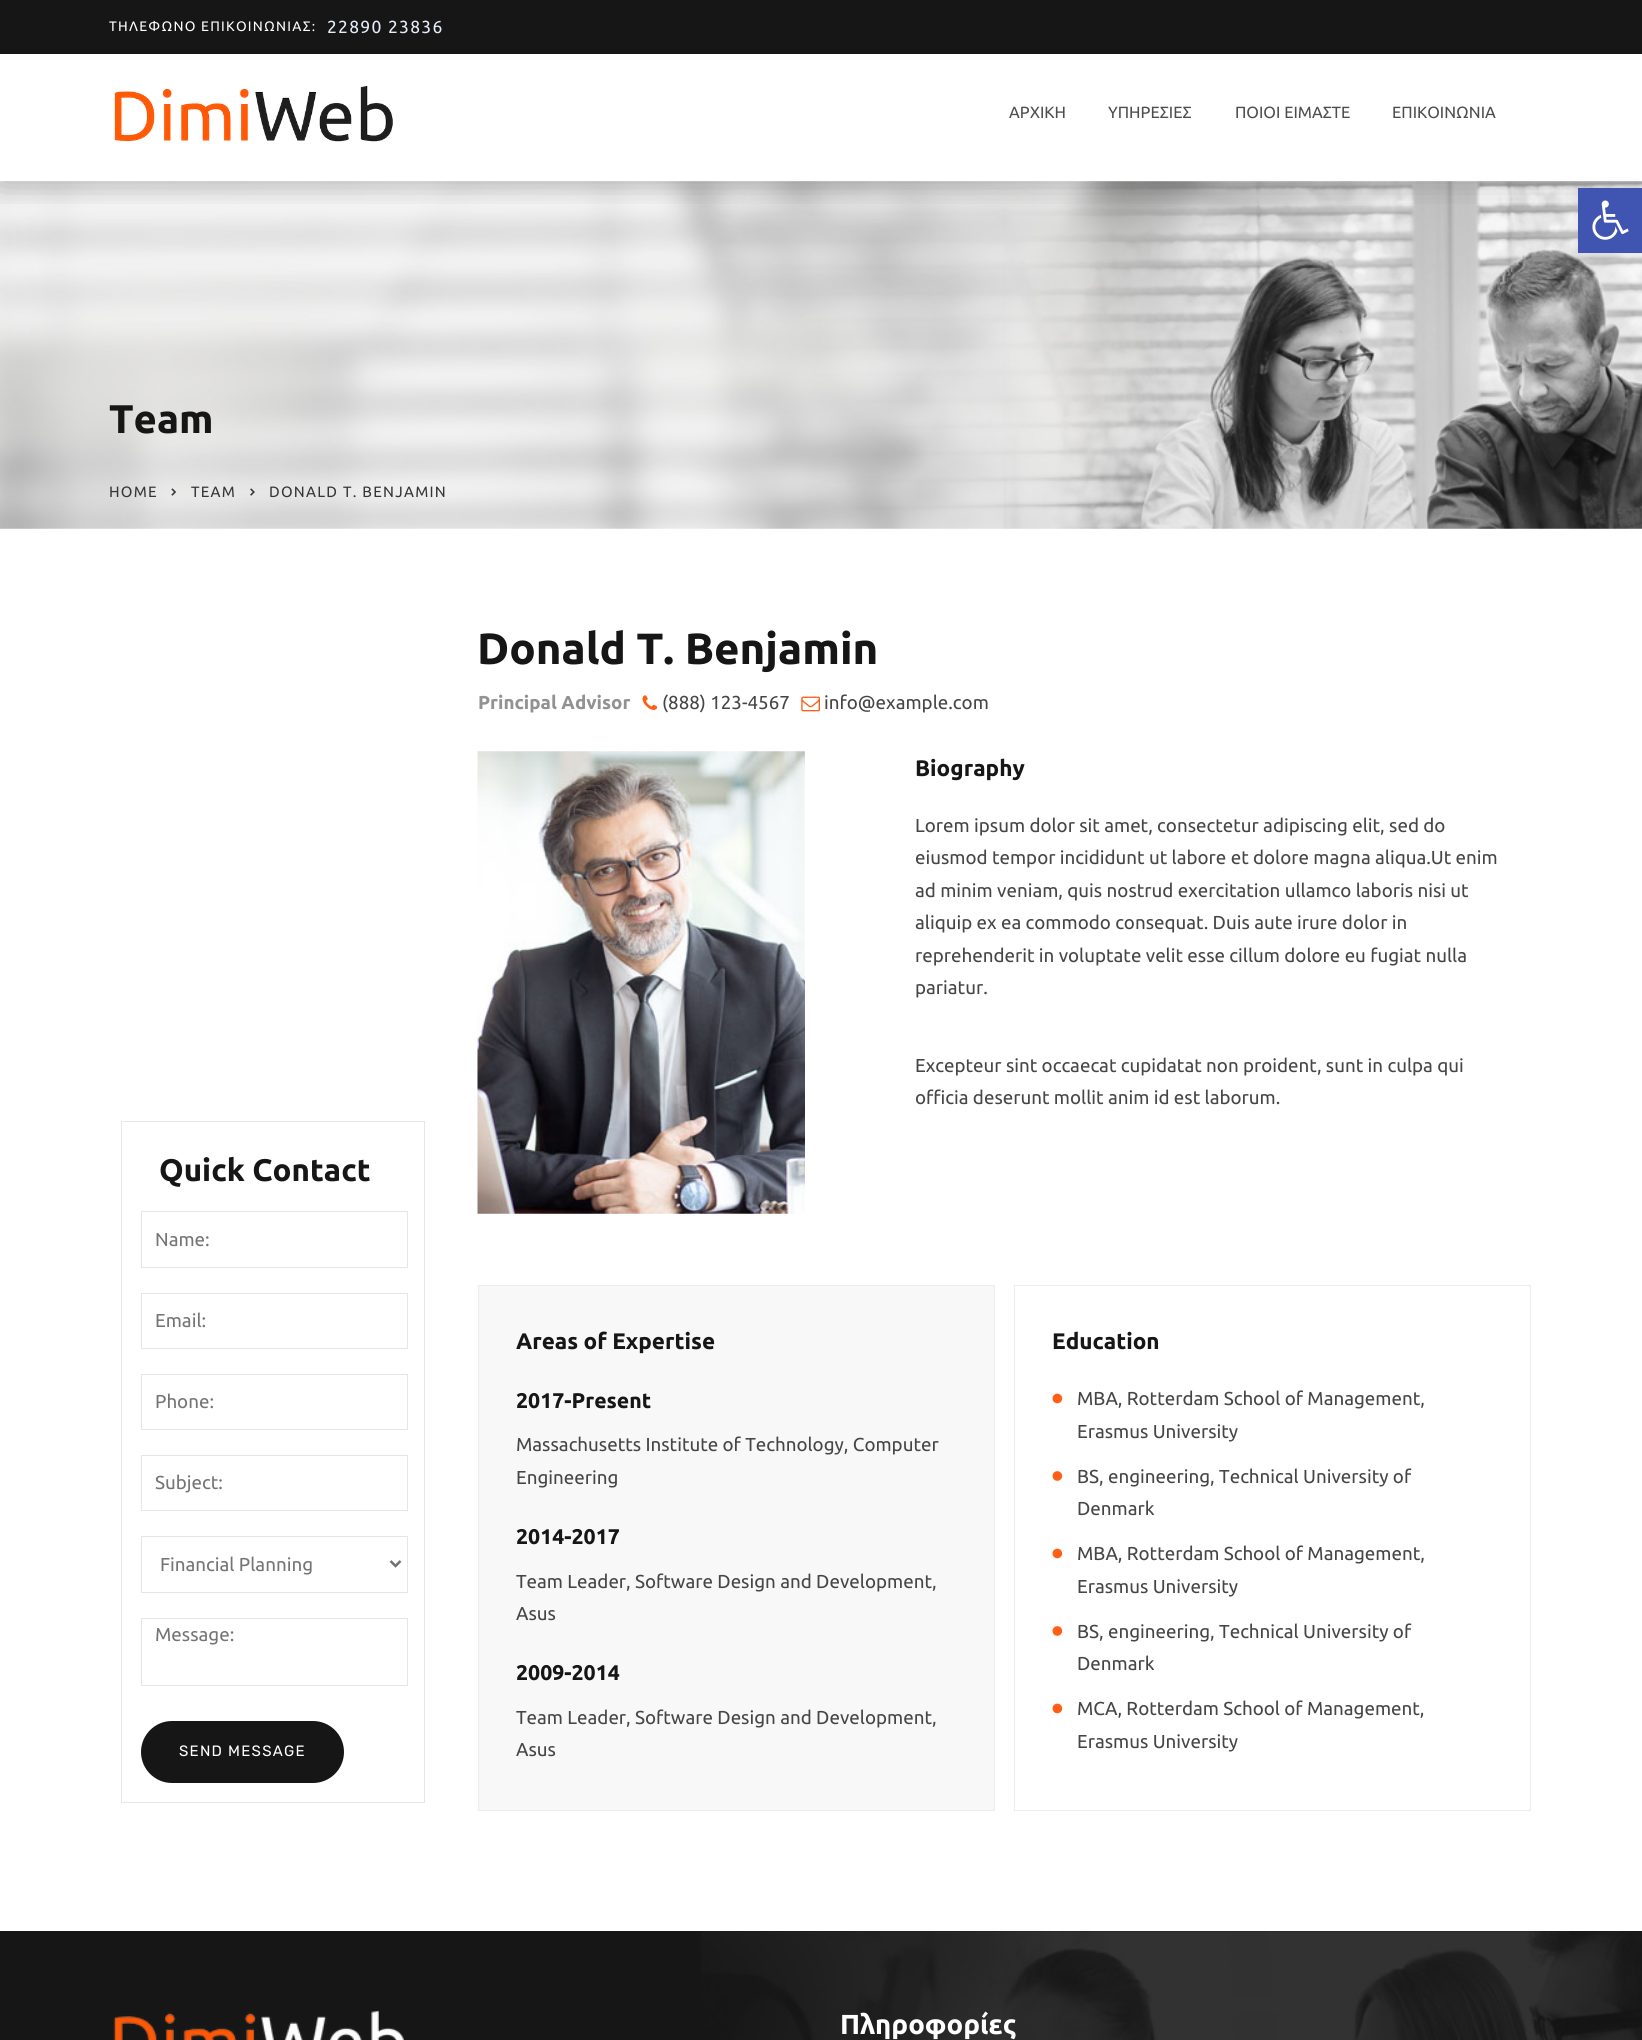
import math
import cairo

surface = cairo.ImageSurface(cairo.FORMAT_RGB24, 1642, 2040)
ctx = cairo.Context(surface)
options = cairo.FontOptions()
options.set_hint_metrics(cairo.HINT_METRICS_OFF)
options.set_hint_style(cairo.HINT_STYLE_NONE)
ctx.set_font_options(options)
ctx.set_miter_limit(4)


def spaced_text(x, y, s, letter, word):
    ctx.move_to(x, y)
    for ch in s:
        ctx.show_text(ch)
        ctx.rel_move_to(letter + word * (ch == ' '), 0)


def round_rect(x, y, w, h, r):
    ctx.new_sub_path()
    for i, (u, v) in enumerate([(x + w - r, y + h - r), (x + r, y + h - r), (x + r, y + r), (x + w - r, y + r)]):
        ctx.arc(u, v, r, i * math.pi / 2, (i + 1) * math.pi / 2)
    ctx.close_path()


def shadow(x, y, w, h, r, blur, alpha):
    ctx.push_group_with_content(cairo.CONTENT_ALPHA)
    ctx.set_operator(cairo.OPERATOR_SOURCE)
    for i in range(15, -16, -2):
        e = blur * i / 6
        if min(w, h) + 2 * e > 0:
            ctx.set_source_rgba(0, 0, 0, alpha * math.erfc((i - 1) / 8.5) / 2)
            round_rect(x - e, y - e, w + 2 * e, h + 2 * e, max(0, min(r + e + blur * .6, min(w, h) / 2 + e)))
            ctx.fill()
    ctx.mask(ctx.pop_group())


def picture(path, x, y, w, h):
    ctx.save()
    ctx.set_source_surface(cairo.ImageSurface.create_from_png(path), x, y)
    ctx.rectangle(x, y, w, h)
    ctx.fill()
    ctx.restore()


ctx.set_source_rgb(1, 1, 1)
ctx.paint()
picture("img3.png", 0, 181, 1642, 348)
ctx.save()
ctx.rectangle(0, 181, 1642, 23)
ctx.clip()
ctx.set_source_rgb(0.02, 0.024, 0.024)
shadow(0, 0, 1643, 181, 0, 17, 0.22)
ctx.restore()
ctx.set_source_rgb(0.086, 0.086, 0.086)
ctx.rectangle(0, 0, 1642, 54)
ctx.fill()
ctx.select_font_face("Ubuntu")
ctx.set_font_size(13.75)
ctx.set_source_rgb(1, 1, 1)
spaced_text(109, 31, "ΤΗΛΕΦΩΝΟ ΕΠΙΚΟΙΝΩΝΙΑΣ:", 1.25, 0)
ctx.set_font_size(17.5)
ctx.set_source_rgb(0.898, 0.925, 0.98)
spaced_text(327, 33, "22890 23836", 1.25, 0)
picture("img1.png", 114, 85, 279, 57)
ctx.set_font_size(16.25)
ctx.set_source_rgb(0.302, 0.302, 0.302)
ctx.move_to(1009, 118)
ctx.show_text("ΑΡΧΙΚΗ")
ctx.move_to(1108, 118)
ctx.show_text("ΥΠΗΡΕΣΙΕΣ")
ctx.move_to(1235, 118)
ctx.show_text("ΠΟΙΟΙ ΕΙΜΑΣΤΕ")
ctx.move_to(1392, 118)
ctx.show_text("ΕΠΙΚΟΙΝΩΝΙΑ")
ctx.set_source_rgb(0, 0, 0)
shadow(1578, 188, 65, 65, 0, 6, 0.1)
ctx.set_source_rgb(0.251, 0.329, 0.698)
ctx.rectangle(1578, 188, 64, 65)
ctx.fill()
picture("img2.png", 1592, 200, 37, 40)
ctx.select_font_face("Ubuntu", cairo.FONT_SLANT_NORMAL, cairo.FONT_WEIGHT_BOLD)
ctx.set_font_size(40)
ctx.set_source_rgb(0.086, 0.086, 0.086)
ctx.move_to(109, 433)
ctx.show_text("Team")
ctx.select_font_face("Ubuntu")
ctx.set_font_size(15)
ctx.set_source_rgb(0.212, 0.212, 0.212)
spaced_text(109, 497, "HOME", 1.25, 0)
picture("img4.png", 171, 488, 6, 8)
spaced_text(191, 497, "TEAM", 1.25, 0)
picture("img5.png", 250, 488, 5, 8)
spaced_text(269, 497, "DONALD T. BENJAMIN", 1.25, 0)
ctx.rectangle(121.5, 1121.5, 303, 681)
ctx.set_source_rgb(0.902, 0.902, 0.902)
ctx.set_line_width(1)
ctx.stroke()
ctx.select_font_face("Ubuntu", cairo.FONT_SLANT_NORMAL, cairo.FONT_WEIGHT_BOLD)
ctx.set_font_size(31.25)
ctx.set_source_rgb(0.086, 0.086, 0.086)
ctx.move_to(159, 1181)
ctx.show_text("Quick Contact")
ctx.rectangle(141.5, 1211.5, 266, 56)
ctx.set_source_rgb(0.902, 0.902, 0.902)
ctx.stroke()
ctx.select_font_face("Ubuntu")
ctx.set_font_size(18.75)
ctx.set_source_rgb(0.459, 0.459, 0.459)
ctx.move_to(155, 1246)
ctx.show_text("Name:")
ctx.rectangle(141.5, 1293.5, 266, 55)
ctx.set_source_rgb(0.902, 0.902, 0.902)
ctx.stroke()
ctx.set_source_rgb(0.459, 0.459, 0.459)
ctx.move_to(155, 1327)
ctx.show_text("Email:")
ctx.rectangle(141.5, 1374.5, 266, 55)
ctx.set_source_rgb(0.902, 0.902, 0.902)
ctx.stroke()
ctx.set_source_rgb(0.459, 0.459, 0.459)
ctx.move_to(155, 1408)
ctx.show_text("Phone:")
ctx.rectangle(141.5, 1455.5, 266, 55)
ctx.set_source_rgb(0.902, 0.902, 0.902)
ctx.stroke()
ctx.set_source_rgb(0.459, 0.459, 0.459)
ctx.move_to(155, 1489)
ctx.show_text("Subject:")
ctx.rectangle(141.5, 1536.5, 266, 56)
ctx.set_source_rgb(0.902, 0.902, 0.902)
ctx.stroke()
ctx.new_path()
ctx.move_to(390.5, 1561)
ctx.line_to(395.5, 1566)
ctx.line_to(400.5, 1561)
ctx.set_source_rgb(0.443, 0.443, 0.443)
ctx.set_line_width(2.5)
ctx.stroke()
ctx.set_source_rgb(0.459, 0.459, 0.459)
ctx.move_to(160, 1571)
ctx.show_text("Financial Planning")
ctx.rectangle(141.5, 1618.5, 266, 67)
ctx.set_source_rgb(0.902, 0.902, 0.902)
ctx.set_line_width(1)
ctx.stroke()
ctx.set_source_rgb(0.459, 0.459, 0.459)
ctx.move_to(155, 1641)
ctx.show_text("Message:")
ctx.set_source_rgb(0.086, 0.086, 0.086)
round_rect(141, 1721, 203, 62, 31)
ctx.fill()
ctx.select_font_face("Rubik Light")
ctx.set_font_size(15)
ctx.set_source_rgb(1, 1, 1)
spaced_text(179, 1756, "SEND MESSAGE", 1.25, 0)
ctx.select_font_face("Ubuntu", cairo.FONT_SLANT_NORMAL, cairo.FONT_WEIGHT_BOLD)
ctx.set_font_size(43.75)
ctx.set_source_rgb(0.086, 0.086, 0.086)
ctx.move_to(477, 664)
ctx.show_text("Donald T. Benjamin")
ctx.set_font_size(18.75)
ctx.set_source_rgb(0.573, 0.573, 0.573)
ctx.move_to(478, 709)
ctx.show_text("Principal Advisor")
picture("img6.png", 642, 695, 16, 15)
ctx.select_font_face("Ubuntu")
ctx.set_source_rgb(0.275, 0.275, 0.275)
ctx.move_to(662, 709)
ctx.show_text("(888) 123-4567")
picture("img7.png", 801, 696, 19, 16)
ctx.move_to(824, 709)
ctx.show_text("info@example.com")
picture("img8.png", 477, 751, 328, 463)
ctx.select_font_face("Ubuntu", cairo.FONT_SLANT_NORMAL, cairo.FONT_WEIGHT_BOLD)
ctx.set_font_size(22.5)
ctx.set_source_rgb(0.086, 0.086, 0.086)
ctx.move_to(915, 776)
ctx.show_text("Biography")
ctx.select_font_face("Ubuntu")
ctx.set_font_size(18.75)
ctx.set_source_rgb(0.275, 0.275, 0.275)
ctx.move_to(915, 832)
ctx.show_text("Lorem ipsum dolor sit amet, consectetur adipiscing elit, sed do")
ctx.move_to(915, 864)
ctx.show_text("eiusmod tempor incididunt ut labore et dolore magna aliqua.Ut enim")
ctx.move_to(915, 897)
ctx.show_text("ad minim veniam, quis nostrud exercitation ullamco laboris nisi ut")
ctx.move_to(915, 929)
ctx.show_text("aliquip ex ea commodo consequat. Duis aute irure dolor in")
ctx.move_to(915, 962)
ctx.show_text("reprehenderit in voluptate velit esse cillum dolore eu fugiat nulla")
ctx.move_to(915, 994)
ctx.show_text("pariatur.")
ctx.move_to(915, 1072)
ctx.show_text("Excepteur sint occaecat cupidatat non proident, sunt in culpa qui")
ctx.move_to(915, 1104)
ctx.show_text("officia deserunt mollit anim id est laborum.")
ctx.set_source_rgb(0.969, 0.969, 0.969)
ctx.rectangle(478.5, 1285.5, 516, 525)
ctx.fill_preserve()
ctx.set_source_rgb(0.922, 0.922, 0.922)
ctx.stroke()
ctx.select_font_face("Ubuntu", cairo.FONT_SLANT_NORMAL, cairo.FONT_WEIGHT_BOLD)
ctx.set_font_size(22.5)
ctx.set_source_rgb(0.086, 0.086, 0.086)
ctx.move_to(516, 1349)
ctx.show_text("Areas of Expertise")
ctx.set_font_size(21.25)
ctx.move_to(516, 1408)
ctx.show_text("2017-Present")
ctx.select_font_face("Ubuntu")
ctx.set_font_size(18.75)
ctx.set_source_rgb(0.275, 0.275, 0.275)
ctx.move_to(516, 1451)
ctx.show_text("Massachusetts Institute of Technology, Computer")
ctx.move_to(516, 1484)
ctx.show_text("Engineering")
ctx.select_font_face("Ubuntu", cairo.FONT_SLANT_NORMAL, cairo.FONT_WEIGHT_BOLD)
ctx.set_font_size(21.25)
ctx.set_source_rgb(0.086, 0.086, 0.086)
ctx.move_to(516, 1544)
ctx.show_text("2014-2017")
ctx.select_font_face("Ubuntu")
ctx.set_font_size(18.75)
ctx.set_source_rgb(0.275, 0.275, 0.275)
ctx.move_to(516, 1588)
ctx.show_text("Team Leader, Software Design and Development,")
ctx.move_to(516, 1620)
ctx.show_text("Asus")
ctx.select_font_face("Ubuntu", cairo.FONT_SLANT_NORMAL, cairo.FONT_WEIGHT_BOLD)
ctx.set_font_size(21.25)
ctx.set_source_rgb(0.086, 0.086, 0.086)
ctx.move_to(516, 1680)
ctx.show_text("2009-2014")
ctx.select_font_face("Ubuntu")
ctx.set_font_size(18.75)
ctx.set_source_rgb(0.275, 0.275, 0.275)
ctx.move_to(516, 1724)
ctx.show_text("Team Leader, Software Design and Development,")
ctx.move_to(516, 1756)
ctx.show_text("Asus")
ctx.rectangle(1014.5, 1285.5, 516, 525)
ctx.set_source_rgb(0.922, 0.922, 0.922)
ctx.stroke()
ctx.select_font_face("Ubuntu", cairo.FONT_SLANT_NORMAL, cairo.FONT_WEIGHT_BOLD)
ctx.set_font_size(22.5)
ctx.set_source_rgb(0.086, 0.086, 0.086)
ctx.move_to(1052, 1349)
ctx.show_text("Education")
picture("img9.png", 1052, 1393, 11, 11)
ctx.select_font_face("Ubuntu")
ctx.set_font_size(18.75)
ctx.set_source_rgb(0.275, 0.275, 0.275)
ctx.move_to(1077, 1405)
ctx.show_text("MBA, Rotterdam School of Management,")
ctx.move_to(1077, 1438)
ctx.show_text("Erasmus University")
picture("img10.png", 1052, 1471, 11, 10)
ctx.move_to(1077, 1483)
ctx.show_text("BS, engineering, Technical University of")
ctx.move_to(1077, 1515)
ctx.show_text("Denmark")
picture("img9.png", 1052, 1548, 11, 11)
ctx.move_to(1077, 1560)
ctx.show_text("MBA, Rotterdam School of Management,")
ctx.move_to(1077, 1593)
ctx.show_text("Erasmus University")
picture("img10.png", 1052, 1626, 11, 10)
ctx.move_to(1077, 1638)
ctx.show_text("BS, engineering, Technical University of")
ctx.move_to(1077, 1670)
ctx.show_text("Denmark")
picture("img9.png", 1052, 1703, 11, 11)
ctx.move_to(1077, 1715)
ctx.show_text("MCA, Rotterdam School of Management,")
ctx.move_to(1077, 1748)
ctx.show_text("Erasmus University")
ctx.set_source_rgb(0.086, 0.086, 0.086)
ctx.rectangle(0, 1931, 1642, 109)
ctx.fill()
picture("img11.png", 701, 1931, 941, 109)
picture("img12.png", 113, 2010, 291, 30)
ctx.select_font_face("Ubuntu", cairo.FONT_SLANT_NORMAL, cairo.FONT_WEIGHT_BOLD)
ctx.set_font_size(27.5)
ctx.set_source_rgb(1, 1, 1)
ctx.move_to(840, 2034)
ctx.show_text("Πληροφορίες")
surface.write_to_png("page.png")
